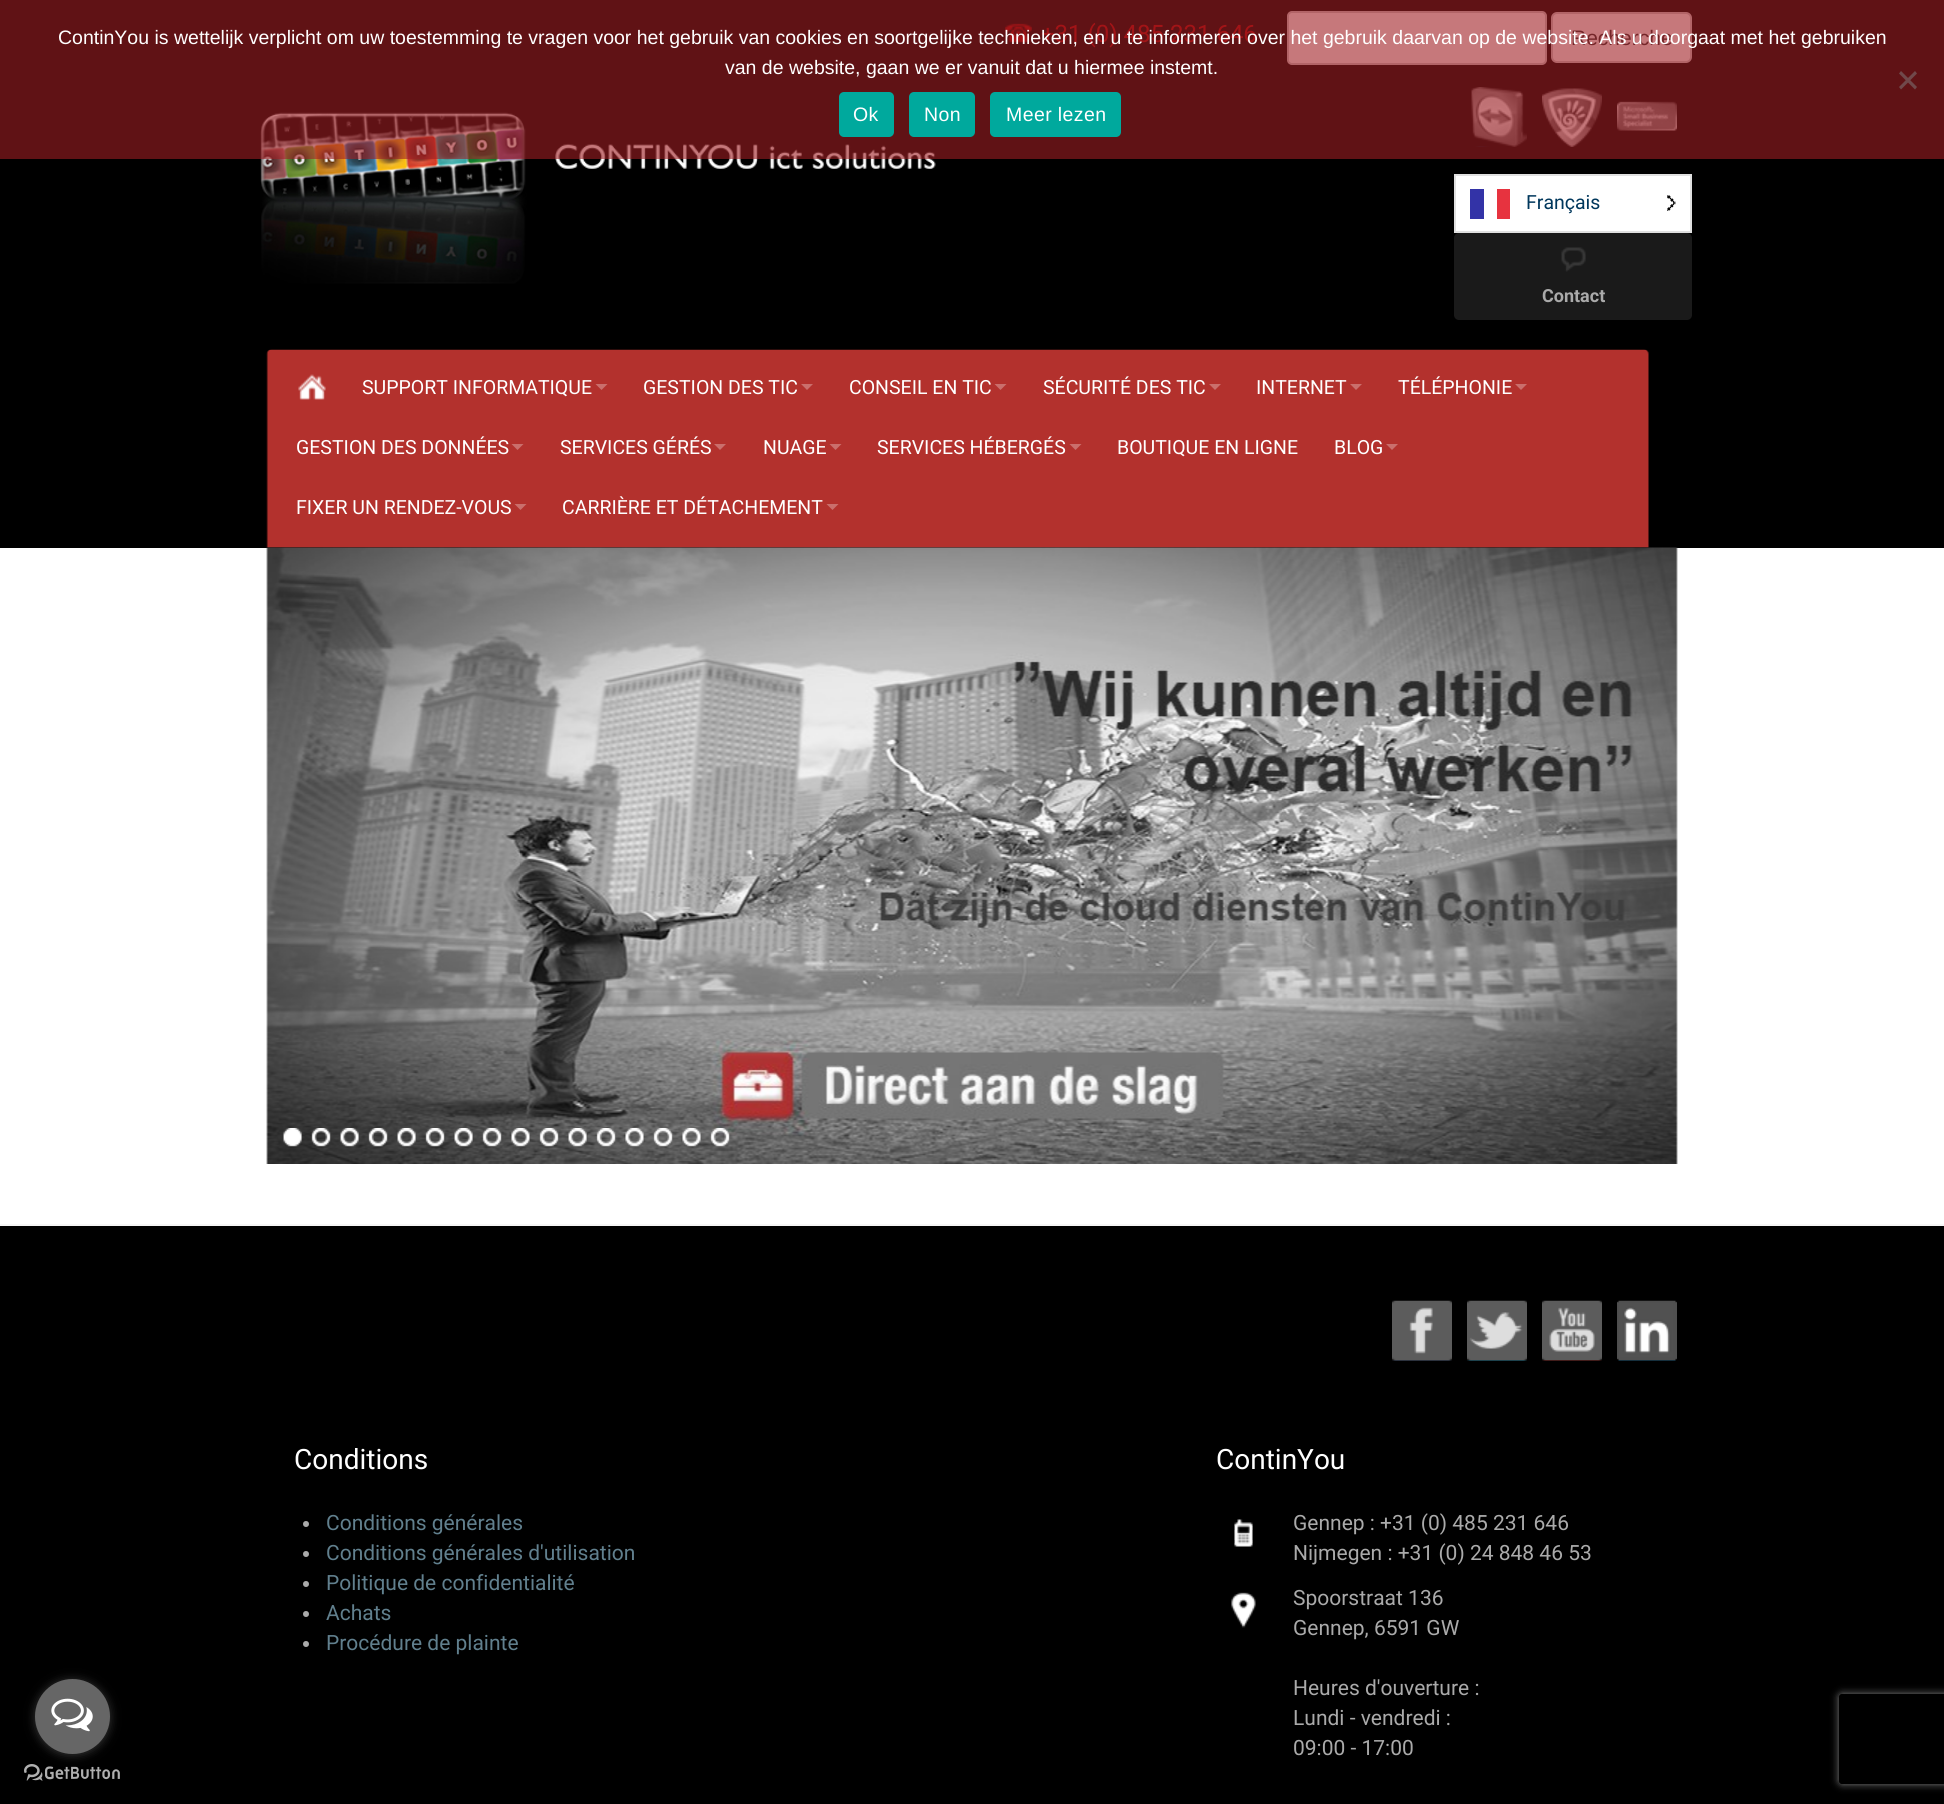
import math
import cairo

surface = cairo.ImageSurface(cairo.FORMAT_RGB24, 1944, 1804)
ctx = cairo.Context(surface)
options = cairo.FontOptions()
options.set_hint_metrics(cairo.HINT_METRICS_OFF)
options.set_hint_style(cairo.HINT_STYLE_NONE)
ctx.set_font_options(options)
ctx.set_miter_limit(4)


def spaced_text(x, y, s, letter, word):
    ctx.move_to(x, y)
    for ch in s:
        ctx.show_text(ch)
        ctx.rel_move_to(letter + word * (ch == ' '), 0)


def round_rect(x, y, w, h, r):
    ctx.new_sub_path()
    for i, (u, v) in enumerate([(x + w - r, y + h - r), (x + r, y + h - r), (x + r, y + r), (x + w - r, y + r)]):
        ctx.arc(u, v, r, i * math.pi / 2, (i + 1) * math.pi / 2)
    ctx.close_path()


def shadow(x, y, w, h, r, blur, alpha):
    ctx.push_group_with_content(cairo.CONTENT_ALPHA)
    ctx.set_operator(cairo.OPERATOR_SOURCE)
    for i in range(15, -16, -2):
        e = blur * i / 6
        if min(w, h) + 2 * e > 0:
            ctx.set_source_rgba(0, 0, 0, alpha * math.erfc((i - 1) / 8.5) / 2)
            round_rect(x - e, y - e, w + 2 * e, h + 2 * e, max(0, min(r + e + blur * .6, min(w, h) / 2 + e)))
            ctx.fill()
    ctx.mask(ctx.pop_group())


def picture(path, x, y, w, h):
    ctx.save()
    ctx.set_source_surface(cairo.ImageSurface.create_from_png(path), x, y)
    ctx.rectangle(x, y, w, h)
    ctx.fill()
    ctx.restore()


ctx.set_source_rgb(0, 0, 0)
ctx.paint()
picture("img1.png", 1005, 23, 27, 20)
ctx.select_font_face("Roboto")
ctx.set_font_size(24)
ctx.set_source_rgb(0.651, 0.016, 0.016)
ctx.move_to(1041, 42)
ctx.show_text("+31 (0) 485 231 646")
ctx.set_source_rgb(1, 1, 1)
round_rect(1288, 12, 258, 52, 4)
ctx.fill_preserve()
ctx.set_source_rgb(0.8, 0.8, 0.8)
ctx.stroke()
ctx.set_source_rgb(1, 1, 1)
round_rect(1552, 13, 139, 49, 5)
ctx.fill_preserve()
ctx.set_source_rgb(0.8, 0.8, 0.8)
ctx.stroke()
ctx.select_font_face("Liberation Sans")
ctx.set_font_size(21)
ctx.set_source_rgb(0.2, 0.2, 0.2)
ctx.move_to(1571, 45)
ctx.show_text("Recherche")
picture("img2.png", 260, 112, 676, 172)
picture("img3.png", 1471, 87, 56, 60)
picture("img4.png", 1542, 88, 60, 59)
picture("img5.png", 1617, 101, 60, 30)
ctx.set_source_rgb(1, 1, 1)
ctx.rectangle(1455, 175, 236, 57)
ctx.fill_preserve()
ctx.set_source_rgb(0.878, 0.878, 0.878)
ctx.stroke()
ctx.set_source_rgb(0.2, 0.2, 0.655)
ctx.rectangle(1470, 189, 14, 30)
ctx.fill()
ctx.set_source_rgb(0.906, 0.2, 0.247)
ctx.rectangle(1497, 189, 13, 30)
ctx.fill()
ctx.select_font_face("Roboto")
ctx.set_font_size(19.5)
ctx.set_source_rgb(0, 0.216, 0.361)
ctx.move_to(1526, 209)
ctx.show_text("Français")
picture("img6.png", 1667, 195, 9, 16)
ctx.set_source_rgb(0.102, 0.102, 0.102)
round_rect(1454, 233, 238, 87, 5)
ctx.fill()
picture("img7.png", 1561, 247, 25, 25)
ctx.select_font_face("Roboto", cairo.FONT_SLANT_NORMAL, cairo.FONT_WEIGHT_BOLD)
ctx.set_font_size(18)
ctx.set_source_rgb(0.667, 0.667, 0.667)
ctx.move_to(1542, 302)
ctx.show_text("Contact")
ctx.set_source_rgb(1, 1, 1)
ctx.rectangle(0, 548, 1944, 676)
ctx.fill()
picture("img10.png", 266, 547, 1412, 617)
picture("img8.png", 266, 349, 1383, 199)
picture("img9.png", 298, 374, 28, 26)
ctx.select_font_face("Roboto")
ctx.set_font_size(19.5)
ctx.move_to(362, 394)
ctx.show_text("SUPPORT INFORMATIQUE")
ctx.set_source_rgb(0.792, 0.435, 0.424)
ctx.new_path()
ctx.move_to(595.5, 384)
ctx.line_to(607.5, 384)
ctx.line_to(601.5, 390)
ctx.close_path()
ctx.fill()
ctx.set_source_rgb(1, 1, 1)
ctx.move_to(643, 394)
ctx.show_text("GESTION DES TIC")
ctx.set_source_rgb(0.792, 0.435, 0.424)
ctx.new_path()
ctx.move_to(801, 384)
ctx.line_to(813, 384)
ctx.line_to(807, 390)
ctx.close_path()
ctx.fill()
ctx.set_source_rgb(1, 1, 1)
ctx.move_to(849, 394)
ctx.show_text("CONSEIL EN TIC")
ctx.set_source_rgb(0.792, 0.435, 0.424)
ctx.new_path()
ctx.move_to(994.5, 384)
ctx.line_to(1006.5, 384)
ctx.line_to(1000.5, 390)
ctx.close_path()
ctx.fill()
ctx.set_source_rgb(1, 1, 1)
ctx.move_to(1043, 394)
ctx.show_text("SÉCURITÉ DES TIC")
ctx.set_source_rgb(0.792, 0.435, 0.424)
ctx.new_path()
ctx.move_to(1209, 384)
ctx.line_to(1221, 384)
ctx.line_to(1215, 390)
ctx.close_path()
ctx.fill()
ctx.set_source_rgb(1, 1, 1)
ctx.move_to(1256, 394)
ctx.show_text("INTERNET")
ctx.set_source_rgb(0.792, 0.435, 0.424)
ctx.new_path()
ctx.move_to(1350, 384)
ctx.line_to(1362, 384)
ctx.line_to(1356, 390)
ctx.close_path()
ctx.fill()
ctx.set_source_rgb(1, 1, 1)
ctx.move_to(1398, 394)
ctx.show_text("TÉLÉPHONIE")
ctx.set_source_rgb(0.792, 0.435, 0.424)
ctx.new_path()
ctx.move_to(1515, 384)
ctx.line_to(1527, 384)
ctx.line_to(1521, 390)
ctx.close_path()
ctx.fill()
ctx.set_source_rgb(1, 1, 1)
ctx.move_to(296, 454)
ctx.show_text("GESTION DES DONNÉES")
ctx.set_source_rgb(0.792, 0.435, 0.424)
ctx.new_path()
ctx.move_to(511.5, 444)
ctx.line_to(523.5, 444)
ctx.line_to(517.5, 450)
ctx.close_path()
ctx.fill()
ctx.set_source_rgb(1, 1, 1)
ctx.move_to(560, 454)
ctx.show_text("SERVICES GÉRÉS")
ctx.set_source_rgb(0.792, 0.435, 0.424)
ctx.new_path()
ctx.move_to(714, 444)
ctx.line_to(726, 444)
ctx.line_to(720, 450)
ctx.close_path()
ctx.fill()
ctx.set_source_rgb(1, 1, 1)
ctx.move_to(763, 454)
ctx.show_text("NUAGE")
ctx.set_source_rgb(0.792, 0.435, 0.424)
ctx.new_path()
ctx.move_to(829.5, 444)
ctx.line_to(841.5, 444)
ctx.line_to(835.5, 450)
ctx.close_path()
ctx.fill()
ctx.set_source_rgb(1, 1, 1)
ctx.move_to(877, 454)
ctx.show_text("SERVICES HÉBERGÉS")
ctx.set_source_rgb(0.792, 0.435, 0.424)
ctx.new_path()
ctx.move_to(1069.5, 444)
ctx.line_to(1081.5, 444)
ctx.line_to(1075.5, 450)
ctx.close_path()
ctx.fill()
ctx.set_source_rgb(1, 1, 1)
ctx.move_to(1117, 454)
ctx.show_text("BOUTIQUE EN LIGNE")
ctx.move_to(1334, 454)
ctx.show_text("BLOG")
ctx.set_source_rgb(0.792, 0.435, 0.424)
ctx.new_path()
ctx.move_to(1386, 444)
ctx.line_to(1398, 444)
ctx.line_to(1392, 450)
ctx.close_path()
ctx.fill()
ctx.set_source_rgb(1, 1, 1)
ctx.move_to(296, 514)
ctx.show_text("FIXER UN RENDEZ-VOUS")
ctx.set_source_rgb(0.792, 0.435, 0.424)
ctx.new_path()
ctx.move_to(514.5, 504)
ctx.line_to(526.5, 504)
ctx.line_to(520.5, 510)
ctx.close_path()
ctx.fill()
ctx.set_source_rgb(1, 1, 1)
ctx.move_to(562, 514)
ctx.show_text("CARRIÈRE ET DÉTACHEMENT")
ctx.set_source_rgb(0.792, 0.435, 0.424)
ctx.new_path()
ctx.move_to(826.5, 504)
ctx.line_to(838.5, 504)
ctx.line_to(832.5, 510)
ctx.close_path()
ctx.fill()
picture("img11.png", 283, 1128, 19, 20)
picture("img12.png", 311, 1128, 20, 20)
picture("img13.png", 340, 1128, 19, 20)
picture("img14.png", 368, 1128, 20, 20)
picture("img15.png", 397, 1128, 19, 20)
picture("img16.png", 425, 1128, 20, 20)
picture("img17.png", 454, 1128, 19, 20)
picture("img18.png", 482, 1128, 20, 21)
picture("img19.png", 511, 1128, 20, 20)
picture("img20.png", 539, 1128, 20, 21)
picture("img21.png", 567, 1128, 21, 21)
picture("img22.png", 596, 1128, 20, 21)
picture("img23.png", 624, 1128, 21, 21)
picture("img24.png", 653, 1128, 20, 21)
picture("img25.png", 681, 1128, 21, 21)
picture("img26.png", 710, 1128, 20, 20)
ctx.set_source_rgb(0.961, 0.961, 0.961)
ctx.rectangle(0, 1224, 1944, 2)
ctx.fill()
picture("img27.png", 1392, 1300, 60, 61)
picture("img28.png", 1467, 1300, 60, 61)
picture("img29.png", 1542, 1300, 60, 61)
picture("img30.png", 1617, 1300, 60, 61)
ctx.set_font_size(28)
ctx.set_source_rgb(1, 1, 1)
ctx.move_to(294, 1469)
ctx.show_text("Conditions")
ctx.set_source_rgb(0.667, 0.667, 0.667)
ctx.new_path()
ctx.arc(306, 1524, 3, 0, 2 * math.pi)
ctx.fill()
ctx.set_font_size(21)
ctx.set_source_rgb(0.38, 0.502, 0.557)
ctx.move_to(326, 1530)
ctx.show_text("Conditions générales")
ctx.set_source_rgb(0.667, 0.667, 0.667)
ctx.new_path()
ctx.arc(306, 1554, 3, 0, 2 * math.pi)
ctx.fill()
ctx.set_source_rgb(0.38, 0.502, 0.557)
ctx.move_to(326, 1560)
ctx.show_text("Conditions générales d'utilisation")
ctx.set_source_rgb(0.667, 0.667, 0.667)
ctx.new_path()
ctx.arc(306, 1584, 3, 0, 2 * math.pi)
ctx.fill()
ctx.set_source_rgb(0.38, 0.502, 0.557)
ctx.move_to(326, 1590)
ctx.show_text("Politique de confidentialité")
ctx.set_source_rgb(0.667, 0.667, 0.667)
ctx.new_path()
ctx.arc(306, 1614, 3, 0, 2 * math.pi)
ctx.fill()
ctx.set_source_rgb(0.38, 0.502, 0.557)
ctx.move_to(326, 1620)
ctx.show_text("Achats")
ctx.set_source_rgb(0.667, 0.667, 0.667)
ctx.new_path()
ctx.arc(306, 1644, 3, 0, 2 * math.pi)
ctx.fill()
ctx.set_source_rgb(0.38, 0.502, 0.557)
ctx.move_to(326, 1650)
ctx.show_text("Procédure de plainte")
ctx.set_font_size(28)
ctx.set_source_rgb(1, 1, 1)
ctx.move_to(1216, 1469)
ctx.show_text("ContinYou")
picture("img31.png", 1234, 1519, 19, 28)
ctx.set_font_size(21)
ctx.set_source_rgb(0.667, 0.667, 0.667)
ctx.move_to(1293, 1530)
ctx.show_text("Gennep : +31 (0) 485 231 646")
ctx.move_to(1293, 1560)
ctx.show_text("Nijmegen : +31 (0) 24 848 46 53")
picture("img32.png", 1231, 1592, 25, 36)
ctx.move_to(1293, 1605)
ctx.show_text("Spoorstraat 136")
ctx.move_to(1293, 1635)
ctx.show_text("Gennep, 6591 GW")
ctx.move_to(1293, 1695)
ctx.show_text("Heures d'ouverture :")
ctx.move_to(1293, 1725)
ctx.show_text("Lundi - vendredi :")
ctx.move_to(1293, 1755)
ctx.show_text("09:00 - 17:00")
ctx.set_source_rgba(0.631, 0.122, 0.137, 0.6)
ctx.rectangle(0, 0, 1944, 159)
ctx.fill()
ctx.select_font_face("Liberation Sans")
ctx.set_font_size(19.5)
ctx.set_source_rgb(1, 1, 1)
ctx.move_to(58, 44)
ctx.show_text("ContinYou is wettelijk verplicht om uw toestemming te vragen voor het gebruik van cookies en soortgelijke technieken, en u te informeren over het gebruik daarvan op de website. Als u doorgaat met het gebruiken")
ctx.move_to(725, 74)
ctx.show_text("van de website, gaan we er vanuit dat u hiermee instemt.")
ctx.set_source_rgb(0.439, 0.286, 0.294)
ctx.new_path()
ctx.move_to(1915, 71)
ctx.line_to(1917, 73.5)
ctx.line_to(1901, 89.5)
ctx.line_to(1899, 87)
ctx.close_path()
ctx.fill()
ctx.new_path()
ctx.move_to(1899, 73.5)
ctx.line_to(1901, 71)
ctx.line_to(1917, 87)
ctx.line_to(1915, 89.5)
ctx.close_path()
ctx.fill()
ctx.set_source_rgb(0, 0.663, 0.616)
round_rect(839, 92, 55, 45, 5)
ctx.fill()
ctx.set_source_rgb(1, 1, 1)
spaced_text(853, 121, "Ok", 0.4, 0)
ctx.set_source_rgb(0, 0.663, 0.616)
round_rect(909, 92, 66, 45, 5)
ctx.fill()
ctx.set_source_rgb(1, 1, 1)
spaced_text(924, 121, "Non", 0.4, 0)
ctx.set_source_rgb(0, 0.663, 0.616)
round_rect(990, 92, 131, 45, 5)
ctx.fill()
ctx.set_source_rgb(1, 1, 1)
spaced_text(1006, 121, "Meer lezen", 0.4, 0)
picture("img34.png", 24, 1764, 96, 17)
ctx.set_source_rgb(0.533, 0.533, 0.533)
shadow(35, 1680, 75, 75, 37.5, 5, 0.4)
ctx.set_source_rgb(0.4, 0.4, 0.4)
ctx.arc(72.5, 1716.5, 37.5, 0, 2 * math.pi)
ctx.fill()
picture("img33.png", 51, 1698, 42, 34)
ctx.save()
ctx.set_fill_rule(cairo.FILL_RULE_EVEN_ODD)
ctx.new_path()
ctx.move_to(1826, 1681)
ctx.line_to(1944, 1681)
ctx.line_to(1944, 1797)
ctx.line_to(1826, 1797)
ctx.close_path()
ctx.move_to(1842, 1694)
ctx.line_to(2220, 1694)
ctx.curve_to(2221.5, 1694, 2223, 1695.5, 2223, 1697)
ctx.line_to(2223, 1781)
ctx.curve_to(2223, 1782.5, 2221.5, 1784, 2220, 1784)
ctx.line_to(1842, 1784)
ctx.curve_to(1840.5, 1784, 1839, 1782.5, 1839, 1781)
ctx.line_to(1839, 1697)
ctx.curve_to(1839, 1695.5, 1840.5, 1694, 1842, 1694)
ctx.close_path()
ctx.clip()
ctx.set_source_rgb(0.502, 0.502, 0.502)
shadow(1839, 1694, 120, 90, 3, 4, 1)
ctx.restore()
surface.write_to_png("page.png")
